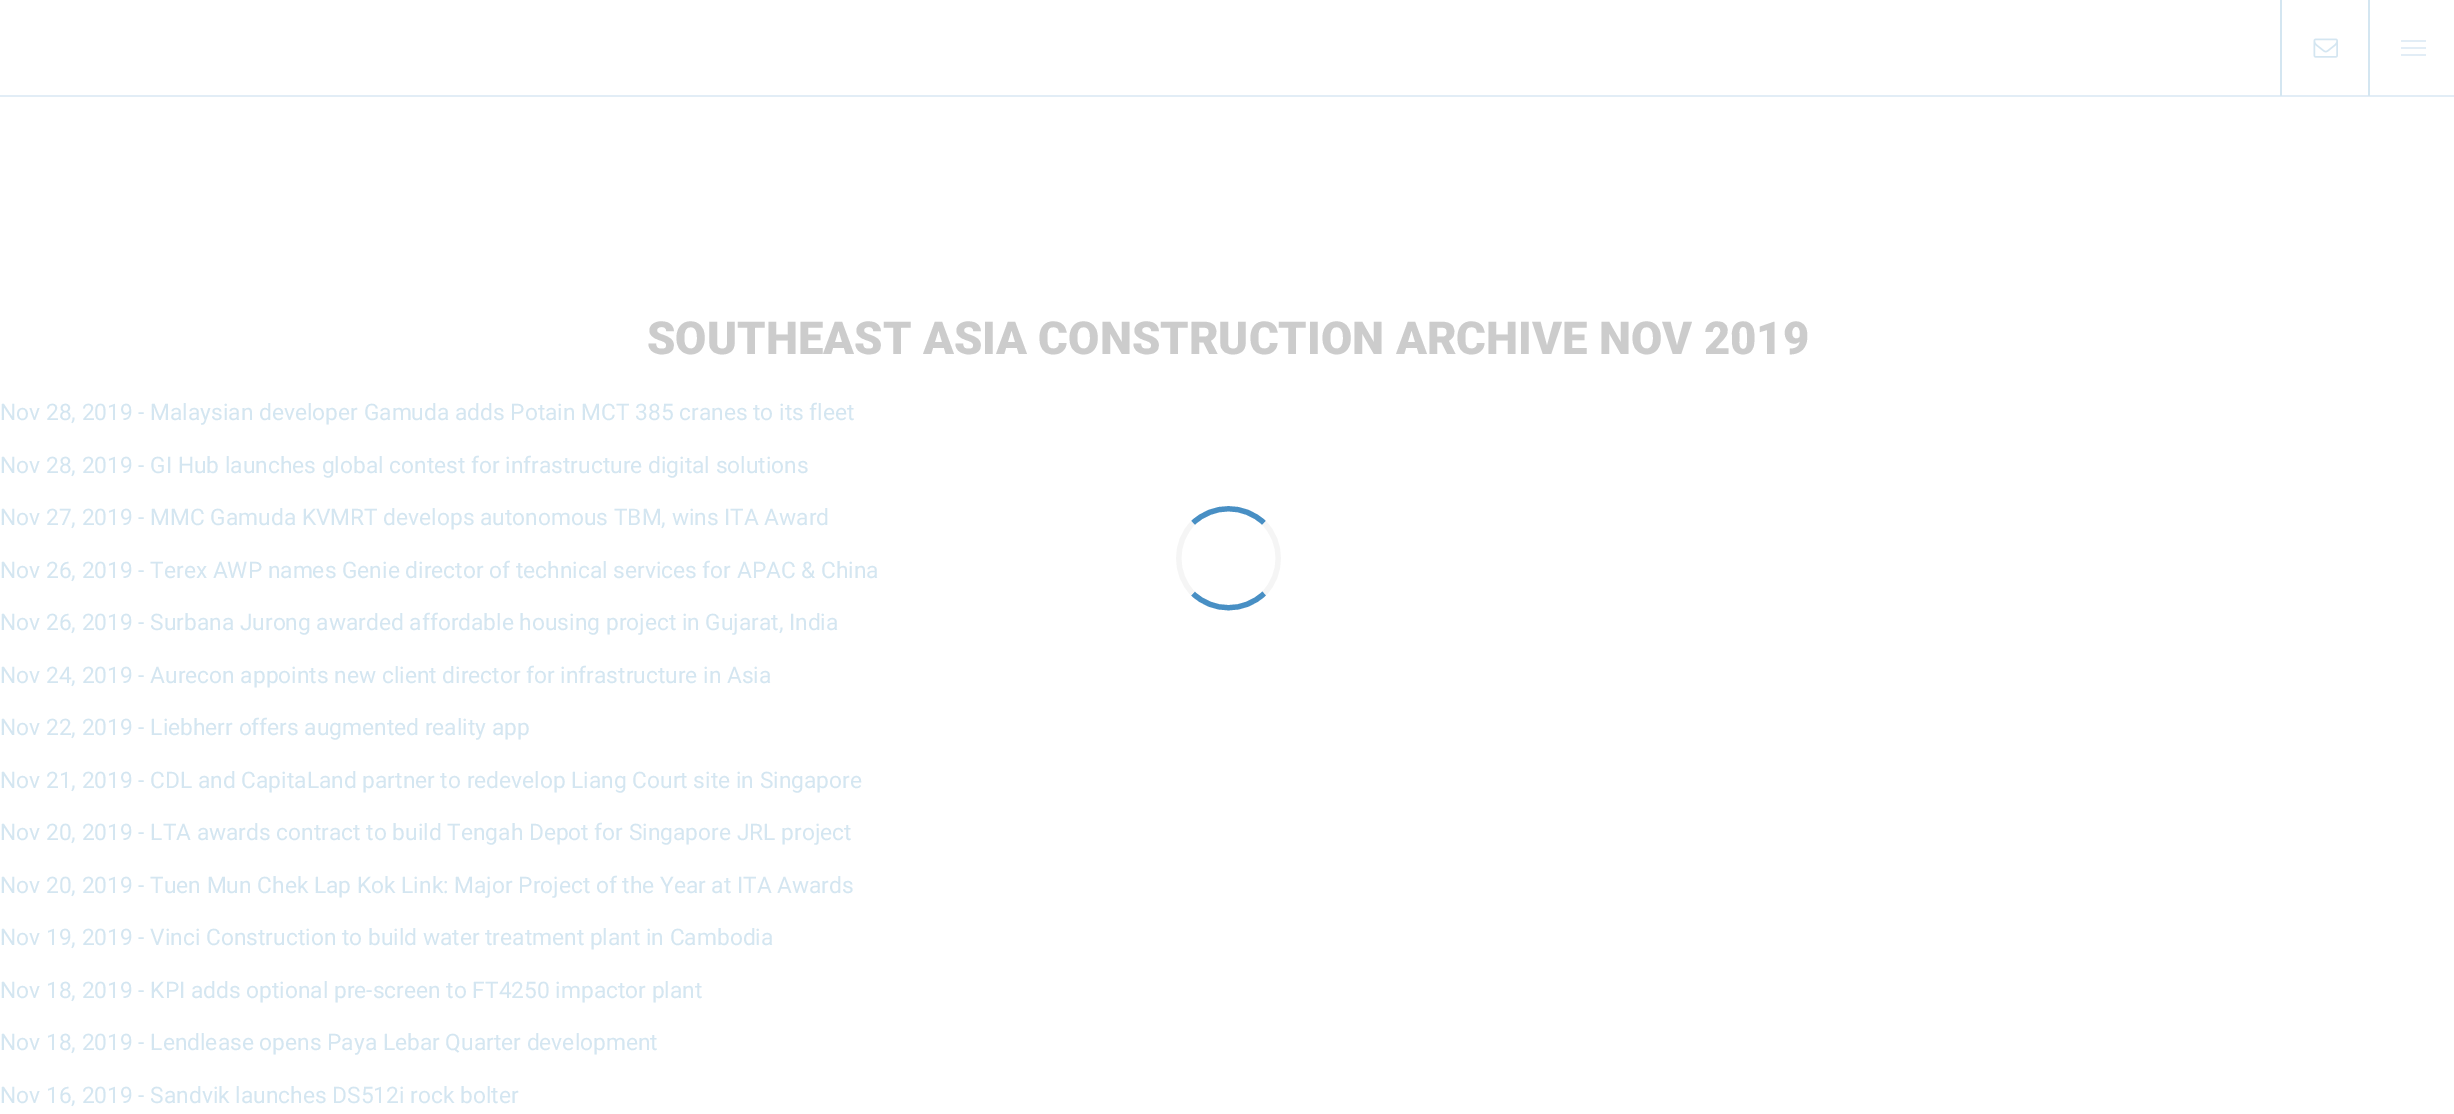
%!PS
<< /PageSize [2454 1114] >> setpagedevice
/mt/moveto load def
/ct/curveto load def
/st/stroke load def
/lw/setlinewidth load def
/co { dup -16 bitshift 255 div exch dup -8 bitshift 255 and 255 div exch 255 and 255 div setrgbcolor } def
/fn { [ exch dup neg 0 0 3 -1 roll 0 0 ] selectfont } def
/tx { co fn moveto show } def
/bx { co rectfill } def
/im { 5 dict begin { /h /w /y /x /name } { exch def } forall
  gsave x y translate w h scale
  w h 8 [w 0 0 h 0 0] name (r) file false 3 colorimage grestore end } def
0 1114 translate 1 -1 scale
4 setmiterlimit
0 0 2454 1114 16#FFFFFF bx
0 95 2454 2 16#E2EDF6 bx
2280 0 2 96 16#D4E6F1 bx
(media/1.raw) 2313 38 25 20 im
2368 0 2 96 16#D4E6F1 bx
2401 40 25 2 16#E2EDF6 bx
2401 47 25 2 16#E2EDF6 bx
2401 54 25 2 16#E2EDF6 bx
16#488FC4 co
5.2 lw
1193 523 mt 1212.5 504 1244.5 504 1264 523 ct st
16#F5F5F5 co
1264 523 mt 1283 542 1283 574.5 1264 593.5 ct st
16#488FC4 co
1264 593.5 mt 1244.5 612.5 1212.5 612.5 1193 593.5 ct st
16#F5F5F5 co
1193 593.5 mt 1174 574.5 1174 542 1193 523 ct st
(SOUTHEAST ASIA CONSTRUCTION ARCHIVE NOV 2019) 647 354 /Roboto-Black 45.5 16#CCCCCC tx
(Nov 28, 2019 - Malaysian developer Gamuda adds Potain MCT 385 cranes to its fleet) 0 420 /Roboto-Regular 22.75 16#D4E6F1 tx
(Nov 28, 2019 - GI Hub launches global contest for infrastructure digital solutions) 0 473 /Roboto-Regular 22.75 16#D4E6F1 tx
(Nov 27, 2019 - MMC Gamuda KVMRT develops autonomous TBM, wins ITA Award) 0 525 /Roboto-Regular 22.75 16#D4E6F1 tx
(Nov 26, 2019 - Terex AWP names Genie director of technical services for APAC & China) 0 578 /Roboto-Regular 22.75 16#D4E6F1 tx
(Nov 26, 2019 - Surbana Jurong awarded affordable housing project in Gujarat, India) 0 630 /Roboto-Regular 22.75 16#D4E6F1 tx
(Nov 24, 2019 - Aurecon appoints new client director for infrastructure in Asia) 0 683 /Roboto-Regular 22.75 16#D4E6F1 tx
(Nov 22, 2019 - Liebherr offers augmented reality app) 0 735 /Roboto-Regular 22.75 16#D4E6F1 tx
(Nov 21, 2019 - CDL and CapitaLand partner to redevelop Liang Court site in Singapore) 0 788 /Roboto-Regular 22.75 16#D4E6F1 tx
(Nov 20, 2019 - LTA awards contract to build Tengah Depot for Singapore JRL project) 0 840 /Roboto-Regular 22.75 16#D4E6F1 tx
(Nov 20, 2019 - Tuen Mun Chek Lap Kok Link: Major Project of the Year at ITA Awards) 0 893 /Roboto-Regular 22.75 16#D4E6F1 tx
(Nov 19, 2019 - Vinci Construction to build water treatment plant in Cambodia) 0 945 /Roboto-Regular 22.75 16#D4E6F1 tx
(Nov 18, 2019 - KPI adds optional pre-screen to FT4250 impactor plant) 0 998 /Roboto-Regular 22.75 16#D4E6F1 tx
(Nov 18, 2019 - Lendlease opens Paya Lebar Quarter development) 0 1050 /Roboto-Regular 22.75 16#D4E6F1 tx
(Nov 16, 2019 - Sandvik launches DS512i rock bolter) 0 1103 /Roboto-Regular 22.75 16#D4E6F1 tx
showpage
